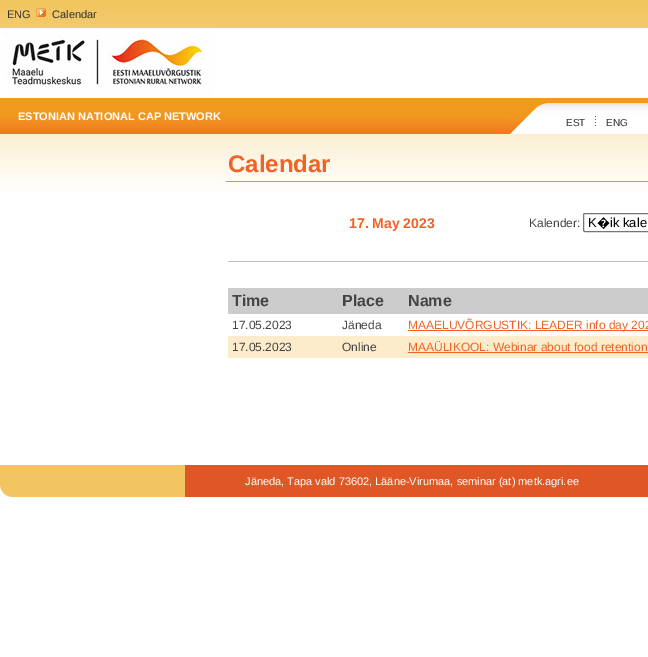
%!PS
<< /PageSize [648 657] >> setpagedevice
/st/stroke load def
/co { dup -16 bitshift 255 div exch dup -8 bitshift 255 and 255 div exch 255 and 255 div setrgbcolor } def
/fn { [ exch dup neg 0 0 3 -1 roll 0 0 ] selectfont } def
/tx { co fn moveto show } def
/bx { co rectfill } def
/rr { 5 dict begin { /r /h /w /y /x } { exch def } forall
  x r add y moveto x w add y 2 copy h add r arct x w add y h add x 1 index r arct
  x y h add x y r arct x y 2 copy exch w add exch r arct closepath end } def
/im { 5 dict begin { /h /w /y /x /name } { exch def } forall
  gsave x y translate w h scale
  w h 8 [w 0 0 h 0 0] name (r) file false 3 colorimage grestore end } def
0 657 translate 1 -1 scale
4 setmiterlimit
0 0 648 657 16#FFFFFF bx
(media/1.raw) 0 0 648 192 im
(media/2.raw) 36 8 10 9 im
(media/3.raw) 0 28 648 70 im
(media/4.raw) 0 98 648 36 im
(media/5.raw) 0 103 505 31 im
(media/6.raw) 505 103 44 31 im
(media/7.raw) 595 116 1 10 im
226 181 422 1 16#F19120 bx
16#767676 co
583.5 213.5 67 18 1.5 rr st
228 261 420 1 16#C0C0C0 bx
228 288 420 26 16#CCCCCC bx
408 330 240 1 16#F16225 bx
228 336 420 22 16#FCECCB bx
408 352 240 1 16#F16225 bx
185 465 463 32 16#E05726 bx
(media/8.raw) 0 465 185 32 im
(ENG) 7 18 /LiberationSans-Regular 11 16#333333 tx
(Calendar) 52 18 /LiberationSans-Regular 11 16#333333 tx
(ESTONIAN NATIONAL CAP NETWORK) 18 120 /LiberationSans-Bold 11 16#FFFFFF tx
(EST) 566 126 /LiberationSans-Regular 10 16#333333 tx
(ENG) 606 126 /LiberationSans-Regular 10 16#333333 tx
(Calendar) 228 172 /LiberationSans-Bold 24 16#F16225 tx
(17. May 2023) 349 228 /LiberationSans-Bold 14 16#F16225 tx
(Kalender:) 529 227 /LiberationSans-Regular 12 16#444444 tx
(K) 588 227 /LiberationSans-Regular 13 16#000000 tx
(�) 597 227 /NotoSans-Regular 13 16#000000 tx
(ik kale) 610 227 /LiberationSans-Regular 13 16#000000 tx
(Time) 232 306 /LiberationSans-Bold 16 16#444444 tx
(Place) 342 306 /LiberationSans-Bold 16 16#444444 tx
(Name) 408 306 /LiberationSans-Bold 16 16#444444 tx
(17.05.2023) 232 329 /LiberationSans-Regular 12 16#444444 tx
(Jäneda) 342 329 /LiberationSans-Regular 12 16#444444 tx
(MAAELUVÕRGUSTIK: LEADER info day 202) 408 329 /LiberationSans-Regular 12 16#F16225 tx
(17.05.2023) 232 351 /LiberationSans-Regular 12 16#444444 tx
(Online) 342 351 /LiberationSans-Regular 12 16#444444 tx
(MAAÜLIKOOL: Webinar about food retention) 408 351 /LiberationSans-Regular 12 16#F16225 tx
(Jäneda, Tapa vald 73602, Lääne-Virumaa, seminar \(at\) metk.agri.ee) 245 485 /LiberationSans-Regular 11 16#FFFFFF tx
showpage
